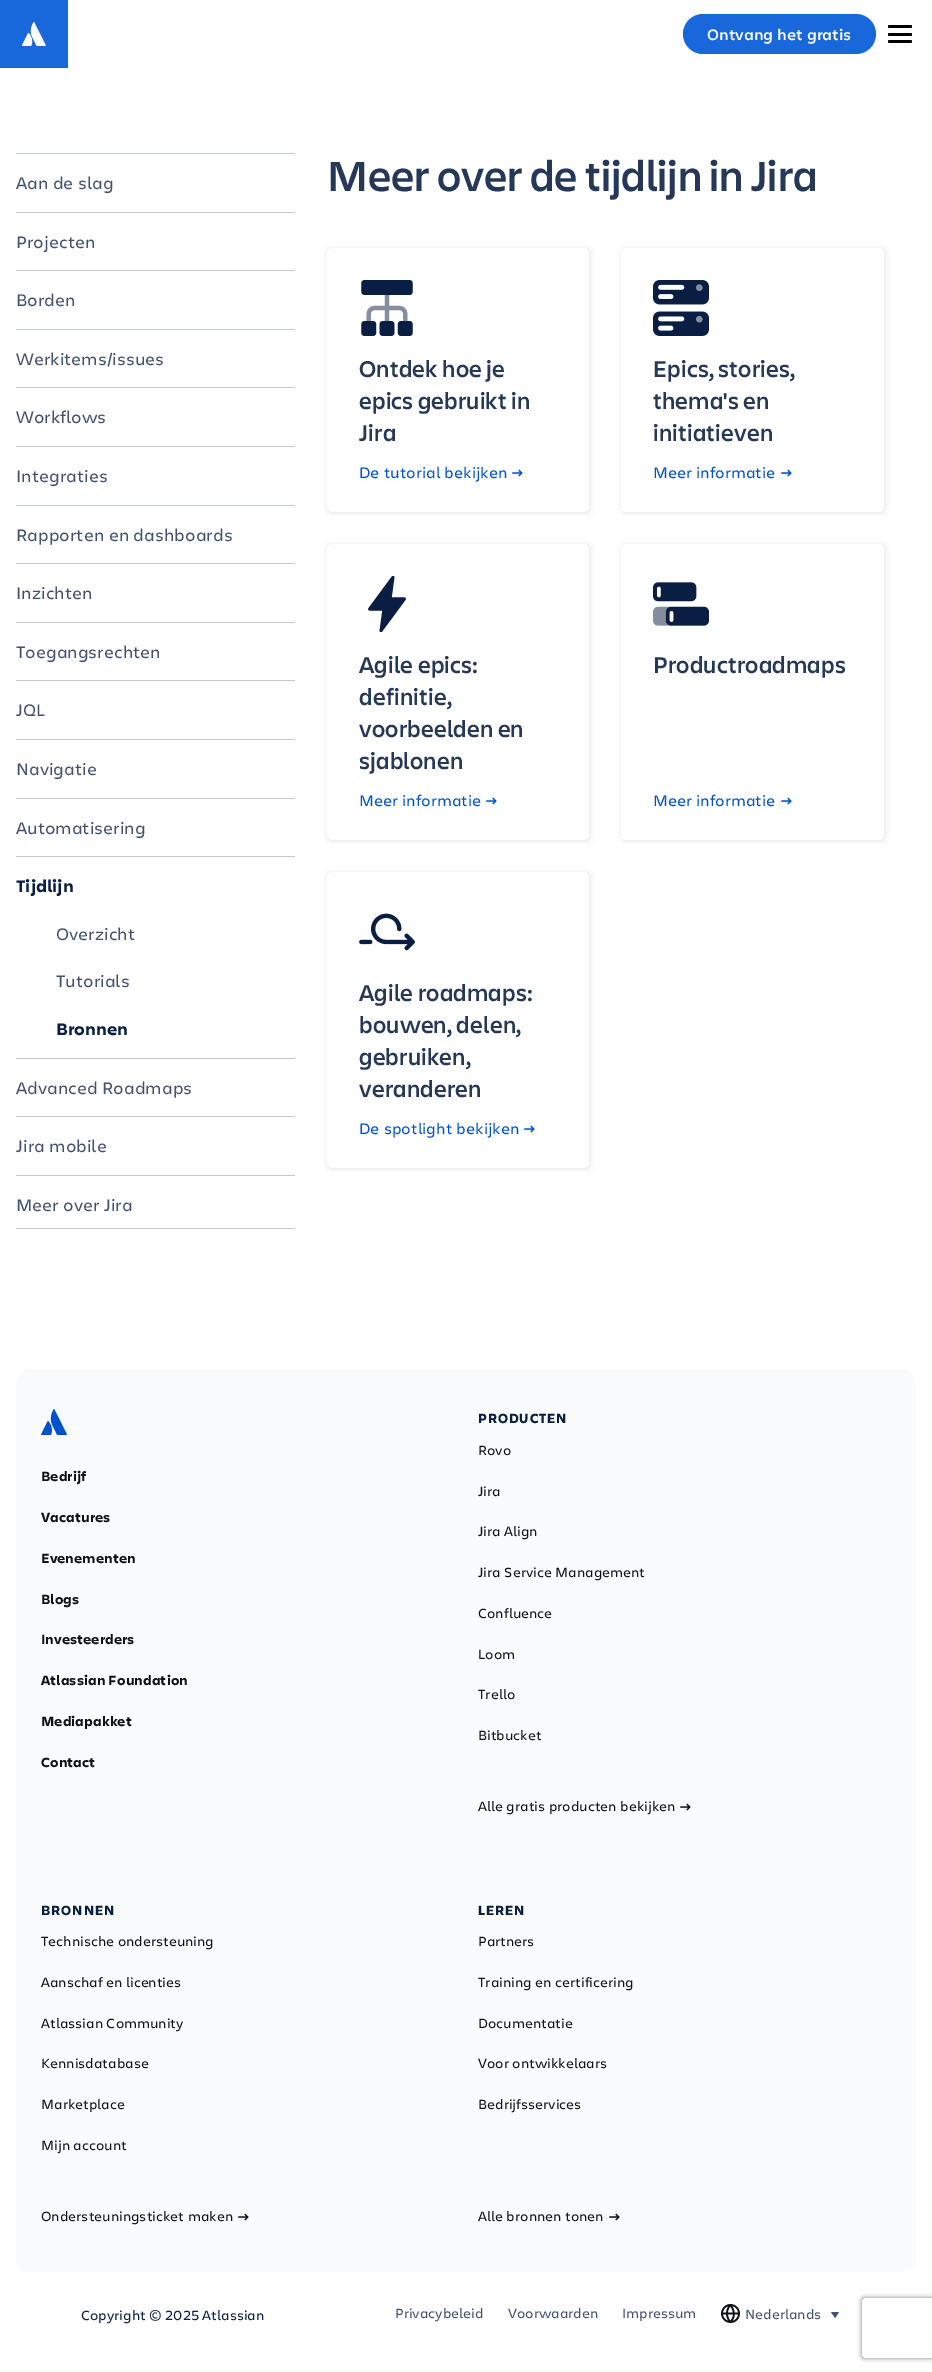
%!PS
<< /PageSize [932 2372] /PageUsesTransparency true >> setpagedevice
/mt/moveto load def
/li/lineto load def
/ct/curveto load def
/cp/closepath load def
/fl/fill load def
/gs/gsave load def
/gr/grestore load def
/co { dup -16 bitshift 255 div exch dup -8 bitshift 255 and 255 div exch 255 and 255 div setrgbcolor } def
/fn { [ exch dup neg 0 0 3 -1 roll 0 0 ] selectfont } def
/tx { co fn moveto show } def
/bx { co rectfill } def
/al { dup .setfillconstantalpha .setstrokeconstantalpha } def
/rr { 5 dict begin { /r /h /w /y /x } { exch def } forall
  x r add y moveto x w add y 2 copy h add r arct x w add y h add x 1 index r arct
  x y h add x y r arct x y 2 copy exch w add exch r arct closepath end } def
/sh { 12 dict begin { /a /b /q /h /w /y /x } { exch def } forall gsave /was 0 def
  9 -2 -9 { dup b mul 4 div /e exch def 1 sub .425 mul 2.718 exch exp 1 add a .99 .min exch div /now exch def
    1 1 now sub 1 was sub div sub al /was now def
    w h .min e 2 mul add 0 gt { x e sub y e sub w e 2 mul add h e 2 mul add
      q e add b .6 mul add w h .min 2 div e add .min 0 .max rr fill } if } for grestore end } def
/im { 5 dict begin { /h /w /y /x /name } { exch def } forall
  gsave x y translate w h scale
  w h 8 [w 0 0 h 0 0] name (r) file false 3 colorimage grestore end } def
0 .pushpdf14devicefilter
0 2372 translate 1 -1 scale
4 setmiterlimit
0 0 932 2372 16#FFFFFF bx
0 0 68 68 16#1868DB bx
(media/1.raw) 21 22 25 24 im
683 14 193 40 20 rr fl
16#000000 co
888 25 24 3 1.5 rr fl
888 33 24 3 1.5 rr fl
888 40 24 3 1.5 rr fl
16 153 279 1 16#C1C7D0 bx
16 212 279 1 16#C1C7D0 bx
16 270 279 1 16#C1C7D0 bx
16 329 279 1 16#C1C7D0 bx
16 387 279 1 16#C1C7D0 bx
16 446 279 1 16#C1C7D0 bx
16 505 279 1 16#C1C7D0 bx
16 563 279 1 16#C1C7D0 bx
16 622 279 1 16#C1C7D0 bx
16 680 279 1 16#C1C7D0 bx
16 739 279 1 16#C1C7D0 bx
16 798 279 1 16#C1C7D0 bx
16 856 279 1 16#C1C7D0 bx
16 1058 279 1 16#C1C7D0 bx
16 1116 279 1 16#C1C7D0 bx
16 1175 279 1 16#C1C7D0 bx
16 1228 279 1 16#C1C7D0 bx
gs
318 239 mt 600 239 li 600 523 li 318 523 li cp 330 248 mt 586 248 li 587.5 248 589 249.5 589 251 ct 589 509 li 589 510.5 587.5 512 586 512 ct 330 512 li 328.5 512 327 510.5 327 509 ct 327 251 li 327 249.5 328.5 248 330 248 ct cp eoclip newpath
16#000000 co
328 249 262 264 3 3 .1 sh
gr
(media/2.raw) 361 280 52 56 im
(media/3.raw) 512 469 11 8 im
gs
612 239 mt 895 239 li 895 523 li 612 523 li cp 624 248 mt 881 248 li 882.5 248 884 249.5 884 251 ct 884 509 li 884 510.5 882.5 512 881 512 ct 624 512 li 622.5 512 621 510.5 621 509 ct 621 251 li 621 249.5 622.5 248 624 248 ct cp eoclip newpath
16#000000 co
622 249 263 264 3 3 .1 sh
gr
(media/4.raw) 653 280 56 56 im
(media/3.raw) 781 469 11 8 im
gs
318 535 mt 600 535 li 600 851 li 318 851 li cp 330 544 mt 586 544 li 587.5 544 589 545.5 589 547 ct 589 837 li 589 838.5 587.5 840 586 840 ct 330 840 li 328.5 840 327 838.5 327 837 ct 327 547 li 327 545.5 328.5 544 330 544 ct cp eoclip newpath
16#000000 co
328 545 262 296 3 3 .1 sh
gr
(media/5.raw) 368 576 38 56 im
(media/3.raw) 486 797 11 8 im
gs
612 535 mt 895 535 li 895 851 li 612 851 li cp 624 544 mt 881 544 li 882.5 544 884 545.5 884 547 ct 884 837 li 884 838.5 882.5 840 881 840 ct 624 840 li 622.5 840 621 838.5 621 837 ct 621 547 li 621 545.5 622.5 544 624 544 ct cp eoclip newpath
16#000000 co
622 545 263 296 3 3 .1 sh
gr
(media/6.raw) 653 582 56 44 im
(media/3.raw) 781 797 11 8 im
gs
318 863 mt 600 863 li 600 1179 li 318 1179 li cp 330 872 mt 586 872 li 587.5 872 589 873.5 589 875 ct 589 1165 li 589 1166.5 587.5 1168 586 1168 ct 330 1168 li 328.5 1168 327 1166.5 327 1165 ct 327 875 li 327 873.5 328.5 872 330 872 ct cp eoclip newpath
16#000000 co
328 873 262 296 3 3 .1 sh
gr
(media/7.raw) 359 913 56 38 im
(media/3.raw) 524 1125 11 8 im
16#FAFBFC co
16 1369 900 903 15 rr fl
(media/8.raw) 41 1409 26 26 im
(media/9.raw) 680 1803 11 8 im
(media/9.raw) 238 2213 11 8 im
(media/9.raw) 609 2213 11 8 im
(media/10.raw) 721 2304 19 19 im
16#42526E co
831 2312 mt 839 2312 li 835 2318 li cp fl
gs
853 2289 mt 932 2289 li 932 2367 li 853 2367 li cp 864 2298 mt 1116 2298 li 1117 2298 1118 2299 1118 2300 ct 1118 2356 li 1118 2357 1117 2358 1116 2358 ct 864 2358 li 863 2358 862 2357 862 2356 ct 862 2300 li 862 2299 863 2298 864 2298 ct cp eoclip newpath
16#808080 co
862 2298 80 60 2 2.5 1 sh
gr
(Ontvang het gratis) 707 40 /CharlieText-SemiBold 16 16#FFFFFF tx
(Aan de slag) 16 189 /CharlieText-Regular 17.6 16#42526E tx
(Projecten) 16 248 /CharlieText-Regular 17.6 16#42526E tx
(Borden) 16 306 /CharlieText-Regular 17.6 16#42526E tx
(Werkitems/issues) 16 365 /CharlieText-Regular 17.6 16#42526E tx
(Workflows) 16 423 /CharlieText-Regular 17.6 16#42526E tx
(Integraties) 16 482 /CharlieText-Regular 17.6 16#42526E tx
(Rapporten en dashboards) 16 541 /CharlieText-Regular 17.6 16#42526E tx
(Inzichten) 16 599 /CharlieText-Regular 17.6 16#42526E tx
(Toegangsrechten) 16 658 /CharlieText-Regular 17.6 16#42526E tx
(JQL) 16 716 /CharlieText-Regular 17.6 16#42526E tx
(Navigatie) 16 775 /CharlieText-Regular 17.6 16#42526E tx
(Automatisering) 16 834 /CharlieText-Regular 17.6 16#42526E tx
(Tijdlijn) 16 892 /CharlieText-Bold 17.6 16#091E42 tx
(Overzicht) 56 940 /CharlieText-Regular 17.6 16#42526E tx
(Tutorials) 56 987 /CharlieText-Regular 17.6 16#42526E tx
(Bronnen) 56 1035 /CharlieText-Bold 17.6 16#091E42 tx
(Advanced Roadmaps) 16 1094 /CharlieText-Regular 17.6 16#42526E tx
(Jira mobile) 16 1152 /CharlieText-Regular 17.6 16#42526E tx
(Meer over Jira) 16 1211 /CharlieText-Regular 17.6 16#42526E tx
(Meer over de tijdlijn in Jira) 327 191 /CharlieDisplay-SemiBold 44 16#253858 tx
/CharlieDisplay-SemiBold 24 fn
359 377 mt .25 0 (Ontdek hoe je) ashow
359 409 mt .25 0 (epics gebruikt in) ashow
359 441 mt .25 0 (Jira) ashow
(De tutorial bekijken) 359 478 /CharlieText-Regular 16 16#0052CC tx
/CharlieDisplay-SemiBold 24 fn
16#253858 co
653 377 mt .25 0 (Epics, stories,) ashow
653 409 mt .25 0 (thema's en) ashow
653 441 mt .25 0 (initiatieven) ashow
(Meer informatie) 653 478 /CharlieText-Regular 16 16#0052CC tx
/CharlieDisplay-SemiBold 24 fn
16#253858 co
359 673 mt .25 0 (Agile epics:) ashow
359 705 mt .25 0 (definitie,) ashow
359 737 mt .25 0 (voorbeelden en) ashow
359 769 mt .25 0 (sjablonen) ashow
(Meer informatie) 359 806 /CharlieText-Regular 16 16#0052CC tx
/CharlieDisplay-SemiBold 24 fn
16#253858 co
653 673 mt .25 0 (Productroadmaps) ashow
(Meer informatie) 653 806 /CharlieText-Regular 16 16#0052CC tx
/CharlieDisplay-SemiBold 24 fn
16#253858 co
359 1001 mt .25 0 (Agile roadmaps:) ashow
359 1033 mt .25 0 (bouwen, delen,) ashow
359 1065 mt .25 0 (gebruiken,) ashow
359 1097 mt .25 0 (veranderen) ashow
(De spotlight bekijken) 359 1134 /CharlieText-Regular 16 16#0052CC tx
(Bedrijf) 41 1481 /CharlieText-Bold 14 16#101214 tx
(Vacatures) 41 1522 /CharlieText-Bold 14 16#101214 tx
(Evenementen) 41 1563 /CharlieText-Bold 14 16#101214 tx
(Blogs) 41 1604 /CharlieText-Bold 14 16#101214 tx
(Investeerders) 41 1644 /CharlieText-Bold 14 16#101214 tx
(Atlassian Foundation) 41 1685 /CharlieText-Bold 14 16#101214 tx
(Mediapakket) 41 1726 /CharlieText-Bold 14 16#101214 tx
(Contact) 41 1767 /CharlieText-Bold 14 16#101214 tx
/CharlieDisplay-Bold 14 fn
16#091E42 co
478 1423 mt 1 0 (PRODUCTEN) ashow
(Rovo) 478 1455 /CharlieText-Regular 14 16#101214 tx
(Jira) 478 1496 /CharlieText-Regular 14 16#101214 tx
(Jira Align) 478 1536 /CharlieText-Regular 14 16#101214 tx
(Jira Service Management) 478 1577 /CharlieText-Regular 14 16#101214 tx
(Confluence) 478 1618 /CharlieText-Regular 14 16#101214 tx
(Loom) 478 1659 /CharlieText-Regular 14 16#101214 tx
(Trello) 478 1699 /CharlieText-Regular 14 16#101214 tx
(Bitbucket) 478 1740 /CharlieText-Regular 14 16#101214 tx
(Alle gratis producten bekijken) 478 1811 /CharlieText-Regular 14 16#101214 tx
/CharlieDisplay-Bold 14 fn
16#091E42 co
41 1915 mt 1 0 (BRONNEN) ashow
(Technische ondersteuning) 41 1946 /CharlieText-Regular 14 16#101214 tx
(Aanschaf en licenties) 41 1987 /CharlieText-Regular 14 16#101214 tx
(Atlassian Community) 41 2028 /CharlieText-Regular 14 16#101214 tx
(Kennisdatabase) 41 2068 /CharlieText-Regular 14 16#101214 tx
(Marketplace) 41 2109 /CharlieText-Regular 14 16#101214 tx
(Mijn account) 41 2150 /CharlieText-Regular 14 16#101214 tx
(Ondersteuningsticket maken) 41 2221 /CharlieText-Regular 14 16#101214 tx
/CharlieDisplay-Bold 14 fn
16#091E42 co
478 1915 mt 1 0 (LEREN) ashow
(Partners) 478 1946 /CharlieText-Regular 14 16#101214 tx
(Training en certificering) 478 1987 /CharlieText-Regular 14 16#101214 tx
(Documentatie) 478 2028 /CharlieText-Regular 14 16#101214 tx
(Voor ontwikkelaars) 478 2068 /CharlieText-Regular 14 16#101214 tx
(Bedrijfsservices) 478 2109 /CharlieText-Regular 14 16#101214 tx
(Alle bronnen tonen) 478 2221 /CharlieText-Regular 14 16#101214 tx
(Copyright © 2025 Atlassian) 81 2320 /CharlieText-Regular 14 16#091E42 tx
(Privacybeleid) 395 2318 /CharlieText-Regular 14 16#42526E tx
(Voorwaarden) 508 2318 /CharlieText-Regular 14 16#42526E tx
(Impressum) 622 2318 /CharlieText-Regular 14 16#42526E tx
(Nederlands) 745 2319 /CharlieText-Regular 14 16#42526E tx
.poppdf14devicefilter showpage
